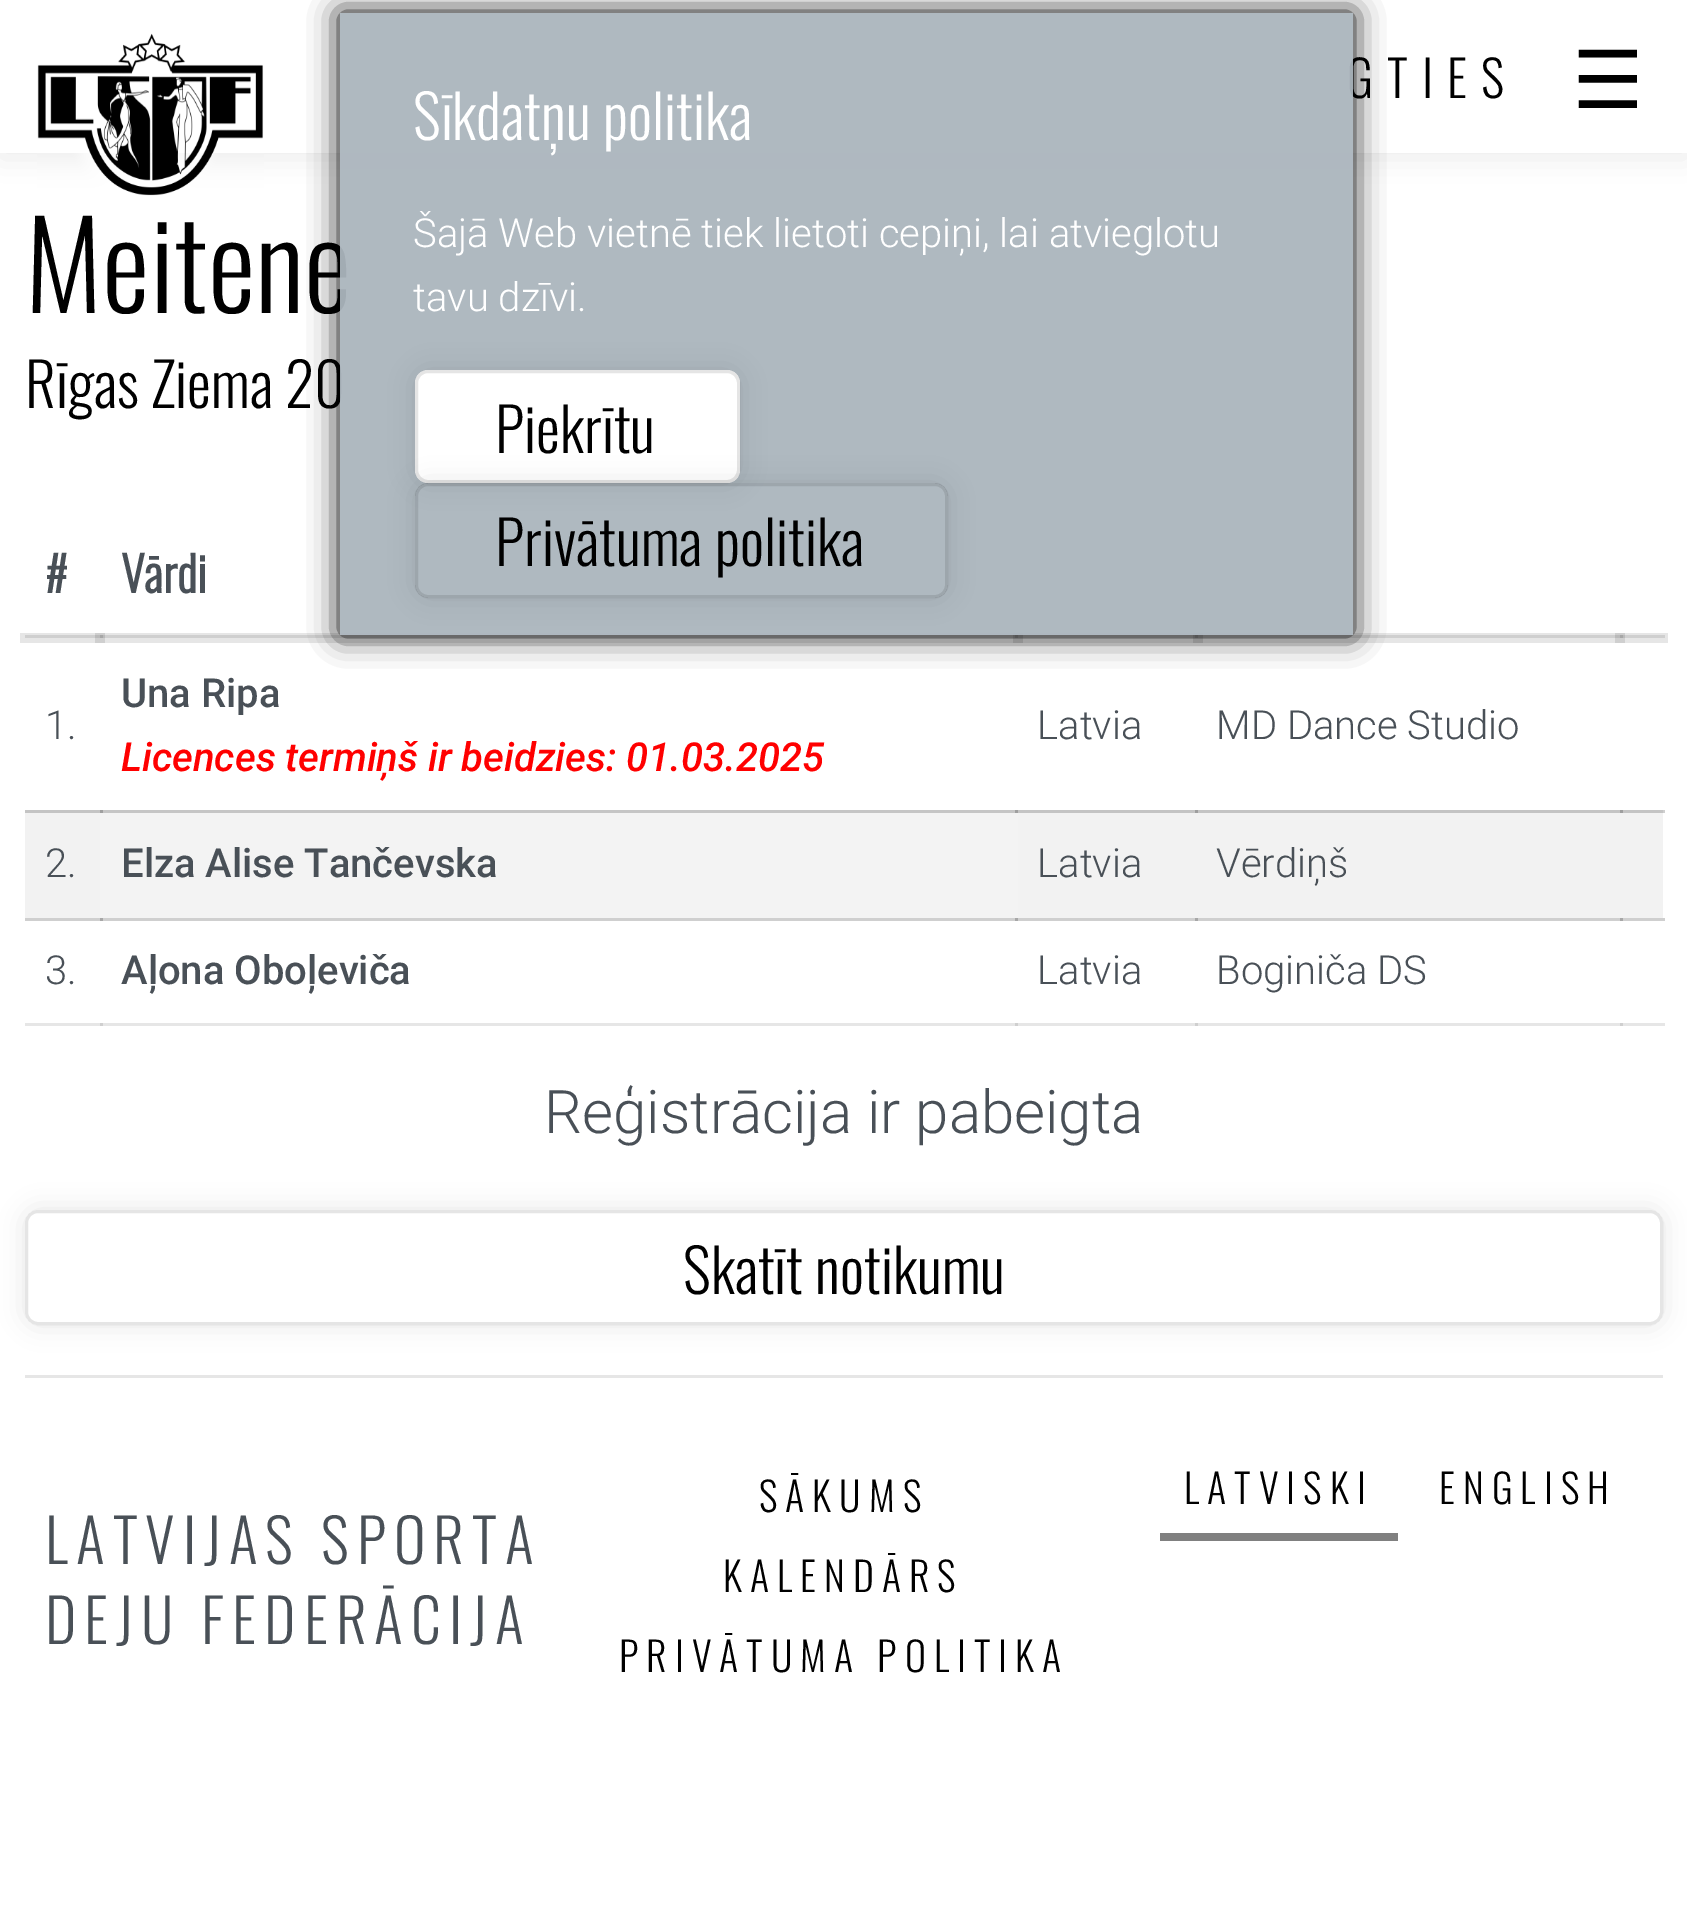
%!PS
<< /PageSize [1687 1905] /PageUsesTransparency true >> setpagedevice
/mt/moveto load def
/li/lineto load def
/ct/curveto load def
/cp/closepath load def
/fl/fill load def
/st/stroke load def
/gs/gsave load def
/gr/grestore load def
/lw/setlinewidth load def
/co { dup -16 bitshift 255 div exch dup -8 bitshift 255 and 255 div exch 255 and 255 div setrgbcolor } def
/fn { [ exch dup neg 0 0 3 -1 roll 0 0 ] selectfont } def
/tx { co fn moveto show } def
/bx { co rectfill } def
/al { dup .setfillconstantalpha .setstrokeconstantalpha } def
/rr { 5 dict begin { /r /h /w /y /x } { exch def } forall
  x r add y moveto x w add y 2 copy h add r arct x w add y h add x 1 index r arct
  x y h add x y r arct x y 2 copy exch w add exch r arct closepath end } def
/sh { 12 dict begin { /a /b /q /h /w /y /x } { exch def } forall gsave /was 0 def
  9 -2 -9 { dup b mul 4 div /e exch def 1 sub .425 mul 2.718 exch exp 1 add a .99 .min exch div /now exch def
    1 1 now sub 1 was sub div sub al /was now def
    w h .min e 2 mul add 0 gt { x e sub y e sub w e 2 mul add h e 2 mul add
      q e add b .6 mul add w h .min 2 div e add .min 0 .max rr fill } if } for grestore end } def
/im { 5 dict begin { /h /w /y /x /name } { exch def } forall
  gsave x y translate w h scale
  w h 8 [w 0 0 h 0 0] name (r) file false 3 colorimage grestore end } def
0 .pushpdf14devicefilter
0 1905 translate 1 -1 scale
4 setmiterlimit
0 0 1687 1905 16#FFFFFF bx
20 633 75 10 16#E6E6E6 bx
105 633 908 10 16#E6E6E6 bx
95 633 10 10 16#CFCFCF bx
1023 633 170 10 16#E6E6E6 bx
1013 633 10 10 16#CFCFCF bx
1203 633 412 10 16#E6E6E6 bx
1193 633 10 10 16#CFCFCF bx
1625 633 43 10 16#E6E6E6 bx
1615 633 10 10 16#CFCFCF bx
25 635 78 3 16#CFCFCF bx
95 635 8 3 16#BABABA bx
100 635 918 3 16#CFCFCF bx
100 635 5 3 16#BABABA bx
1013 635 5 3 16#BABABA bx
100 635 3 3 16#A7A7A7 bx
1015 635 183 3 16#CFCFCF bx
1015 635 8 3 16#BABABA bx
1193 635 5 3 16#BABABA bx
1015 635 3 3 16#A7A7A7 bx
1195 635 428 3 16#CFCFCF bx
1195 635 8 3 16#BABABA bx
1615 635 8 3 16#BABABA bx
1195 635 3 3 16#A7A7A7 bx
1663 810 2 3 16#CFCFCF bx
25 1023 1640 3 16#E6E6E6 bx
25 918 1640 3 16#CFCFCF bx
100 1023 3 3 16#CFCFCF bx
100 918 3 3 16#A7A7A7 bx
1015 1023 3 3 16#CFCFCF bx
1015 918 3 3 16#A7A7A7 bx
1195 1023 3 3 16#CFCFCF bx
1195 918 3 3 16#A7A7A7 bx
gs
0 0 mt 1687 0 li 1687 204 li 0 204 li cp 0 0 mt 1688 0 li 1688 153 li 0 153 li cp eoclip newpath
16#888888 co
0 5 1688 153 0 15 .18 sh
gr
0.95 al
0 152 1687 1 16#FFFFFF bx
1 al
(media/1.raw) 37 33 227 163 im
gs
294 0 mt 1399 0 li 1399 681 li 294 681 li cp 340 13 mt 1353 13 li 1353 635 li 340 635 li cp eoclip newpath
16#000000 co
340 13 1013 622 0 15 1 sh
gr
1620 635 45 3 16#CFCFCF bx
1620 635 5 3 16#BABABA bx
1620 635 3 3 16#A7A7A7 bx
1018 810 645 3 16#C4C4C4 bx
1620 810 3 3 16#9E9E9E bx
25 813 75 105 16#F2F2F2 bx
25 810 75 3 16#C4C4C4 bx
100 813 918 105 16#F3F3F3 bx
100 810 918 3 16#C5C5C5 bx
100 810 3 3 16#9F9F9F bx
1015 810 3 3 16#9F9F9F bx
1018 813 645 105 16#F2F2F2 bx
1195 810 3 3 16#9E9E9E bx
1620 918 3 3 16#A7A7A7 bx
1620 1023 3 3 16#CFCFCF bx
16#000000 co
25 1210 1638 115 13 12.5 .1 sh
16#FFFFFF co
25 1210 1638 115 13 rr fl
0.1 al
16#000000 co
3 lw
26.5 1211.5 1635 112 11.5 rr st
1 al
25 1375 1638 3 16#E6E6E6 bx
1160 1533 238 8 16#808080 bx
/Oswald-Light 50 fn
16#000000 co
1347 98 mt 14 0 (GTIES) ashow
/DejaVuSans-Regular 80 fn
1572 108 mt 14 0 (☰) ashow
(Meitene) 25 313 /Oswald-Light 120 16#000000 tx
(Rīgas Ziema 20) 25 408 /Oswald-Light 60 16#000000 tx
0.95 al
340 13 1013 622 16#ABB5BD bx
1 al
16#000000 co
415 370 325 113 13 12.5 .1 sh
16#FFFFFF co
415 370 325 113 13 rr fl
0.1 al
16#000000 co
416.5 371.5 322 110 11.5 rr st
gs
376 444 mt 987 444 li 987 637 li 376 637 li cp 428 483 mt 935 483 li 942 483 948 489 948 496 ct 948 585 li 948 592 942 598 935 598 ct 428 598 li 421 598 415 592 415 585 ct 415 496 li 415 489 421 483 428 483 ct cp eoclip newpath
1 al
415 483 533 115 13 12.5 .1 sh
gr
416.5 484.5 530 112 11.5 rr st
1 al
(Privātuma politika) 495 566 /Oswald-Light 60 16#000000 tx
(Piekrītu) 495 453 /Oswald-Light 60 16#000000 tx
(tavu dzīvi.) 413 311 /Roboto-Light 40 16#FFFFFF tx
(Šajā Web vietnē tiek lietoti cepiņi, lai atvieglotu) 413 247 /Roboto-Light 40 16#FFFFFF tx
(Sīkdatņu politika) 413 140 /Oswald-Light 60 16#FFFFFF tx
(#) 45 593 /Oswald-Bold 48 16#495057 tx
(Vārdi) 121 593 /Oswald-Bold 48 16#495057 tx
(1.) 45 739 /Roboto-Light 40 16#495057 tx
(Una Ripa) 121 707 /Roboto-Medium 40 16#495057 tx
(Licences termiņš ir beidzies: 01.03.2025) 121 771 /Roboto-MediumItalic 40 16#FF0000 tx
(Latvia) 1037 739 /Roboto-Light 40 16#495057 tx
(MD Dance Studio) 1216 739 /Roboto-Light 40 16#495057 tx
(2.) 45 877 /Roboto-Light 40 16#495057 tx
(Elza Alise Tančevska) 121 877 /Roboto-Medium 40 16#495057 tx
(Latvia) 1037 877 /Roboto-Light 40 16#495057 tx
(Vērdiņš) 1216 877 /Roboto-Light 40 16#495057 tx
(3.) 45 984 /Roboto-Light 40 16#495057 tx
(Aļona Oboļeviča) 121 984 /Roboto-Medium 40 16#495057 tx
(Latvia) 1037 984 /Roboto-Light 40 16#495057 tx
(Boginiča DS) 1216 984 /Roboto-Light 40 16#495057 tx
(Reģistrācija ir pabeigta) 544 1133 /Roboto-Light 60 16#495057 tx
(Skatīt notikumu) 683 1294 /Oswald-Light 60 16#000000 tx
16#495057 co
45 1564 mt 8 0 (LATVIJAS SPORTA) ashow
45 1644 mt 8 0 (DEJU FEDERĀCIJA) ashow
/Oswald-Light 40 fn
16#000000 co
759 1512 mt 8 0 (SĀKUMS) ashow
723 1592 mt 8 0 (KALENDĀRS) ashow
619 1672 mt 8 0 (PRIVĀTUMA POLITIKA) ashow
1184 1504 mt 8 0 (LATVISKI) ashow
1439 1504 mt 8 0 (ENGLISH) ashow
.poppdf14devicefilter showpage
